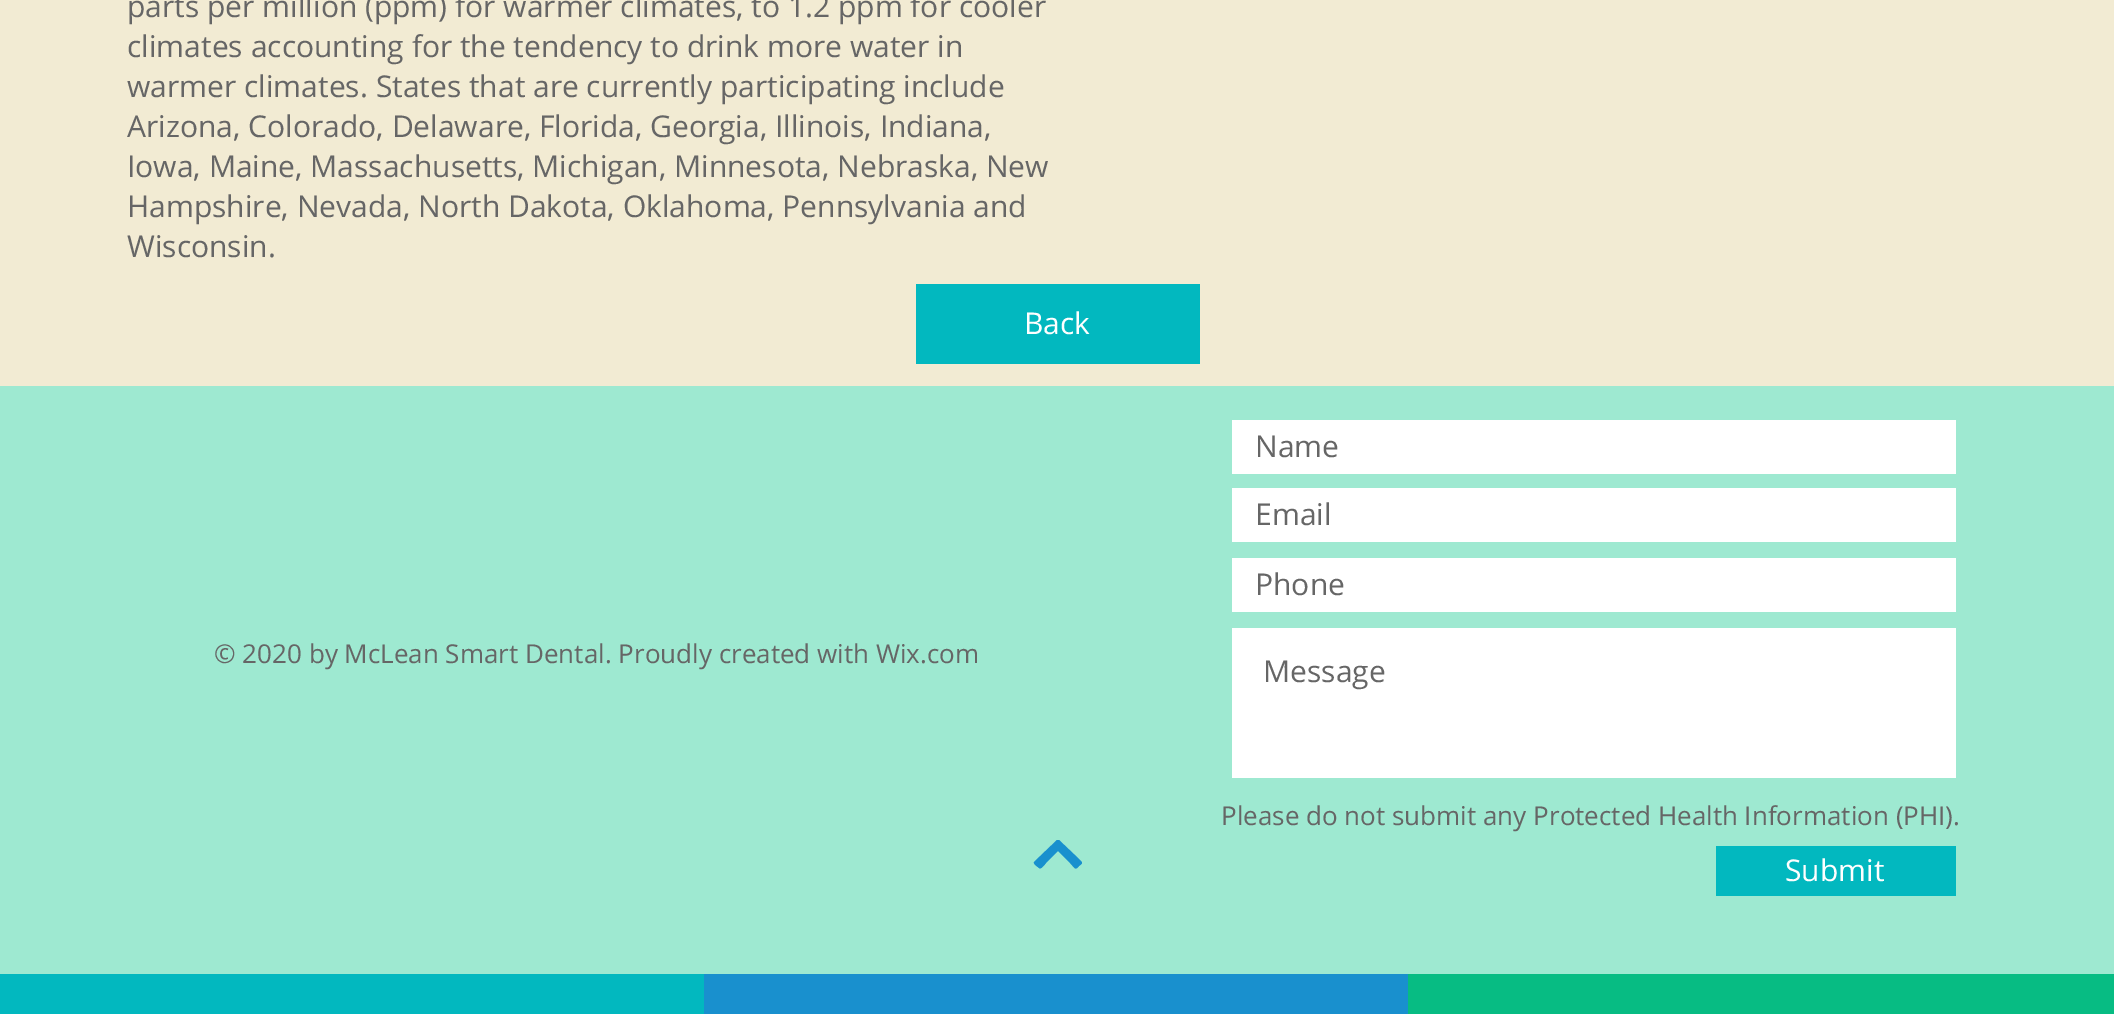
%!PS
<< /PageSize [2114 1014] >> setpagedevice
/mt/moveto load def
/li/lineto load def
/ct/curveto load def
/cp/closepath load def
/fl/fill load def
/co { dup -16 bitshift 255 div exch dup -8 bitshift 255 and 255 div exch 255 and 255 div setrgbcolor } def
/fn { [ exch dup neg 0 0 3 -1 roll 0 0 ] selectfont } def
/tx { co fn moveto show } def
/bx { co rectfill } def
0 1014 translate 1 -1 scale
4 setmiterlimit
0 0 2114 1014 16#F2EBD3 bx
916 284 284 80 16#02B8BF bx
0 386 2114 588 16#9EE9D1 bx
1232 420 724 54 16#FFFFFF bx
1232 488 724 54 16#FFFFFF bx
1232 558 724 54 16#FFFFFF bx
1232 628 724 150 16#FFFFFF bx
1716 846 240 50 16#02B8BF bx
16#1990CE co
1057 840 mt 1034 862 li 1033 864 1038 867 1039 868 ct 1041 870 1045 864 1046 863 ct 1058 851 li 1070 863 li 1075 868 1075 871 1079 866 ct 1083 863 1083 863 1079 859 ct 1059 840 li cp fl
0 974 704 40 16#02B8BF bx
704 974 704 40 16#1990CE bx
1408 974 706 40 16#07BC83 bx
(parts per million \(ppm\) for warmer climates, to 1.2 ppm for cooler) 127 17 /OpenSans-Regular 30 16#666666 tx
(climates accounting for the tendency to drink more water in) 127 57 /OpenSans-Regular 30 16#666666 tx
(warmer climates. States that are currently participating include) 127 97 /OpenSans-Regular 30 16#666666 tx
(Arizona, Colorado, Delaware, Florida, Georgia, Illinois, Indiana,) 127 137 /OpenSans-Regular 30 16#666666 tx
(Iowa, Maine, Massachusetts, Michigan, Minnesota, Nebraska, New) 127 177 /OpenSans-Regular 30 16#666666 tx
(Hampshire, Nevada, North Dakota, Oklahoma, Pennsylvania and) 127 217 /OpenSans-Regular 30 16#666666 tx
(Wisconsin.) 127 257 /OpenSans-Regular 30 16#666666 tx
(Back) 1024 334 /OpenSans-Regular 30 16#FFFFFF tx
(© 2020 by McLean Smart Dental. Proudly created with Wix.com) 214 663 /OpenSans-Regular 26 16#666666 tx
(Name) 1255 457 /OpenSans-Regular 30 16#666666 tx
(Email) 1255 525 /OpenSans-Regular 30 16#666666 tx
(Phone) 1255 595 /OpenSans-Regular 30 16#666666 tx
(Message) 1263 682 /OpenSans-Regular 30 16#666666 tx
(Please do not submit any Protected Health Information \(PHI\).) 1221 825 /OpenSans-Regular 26 16#666666 tx
(Submit) 1785 881 /OpenSans-Regular 30 16#FFFFFF tx
showpage
